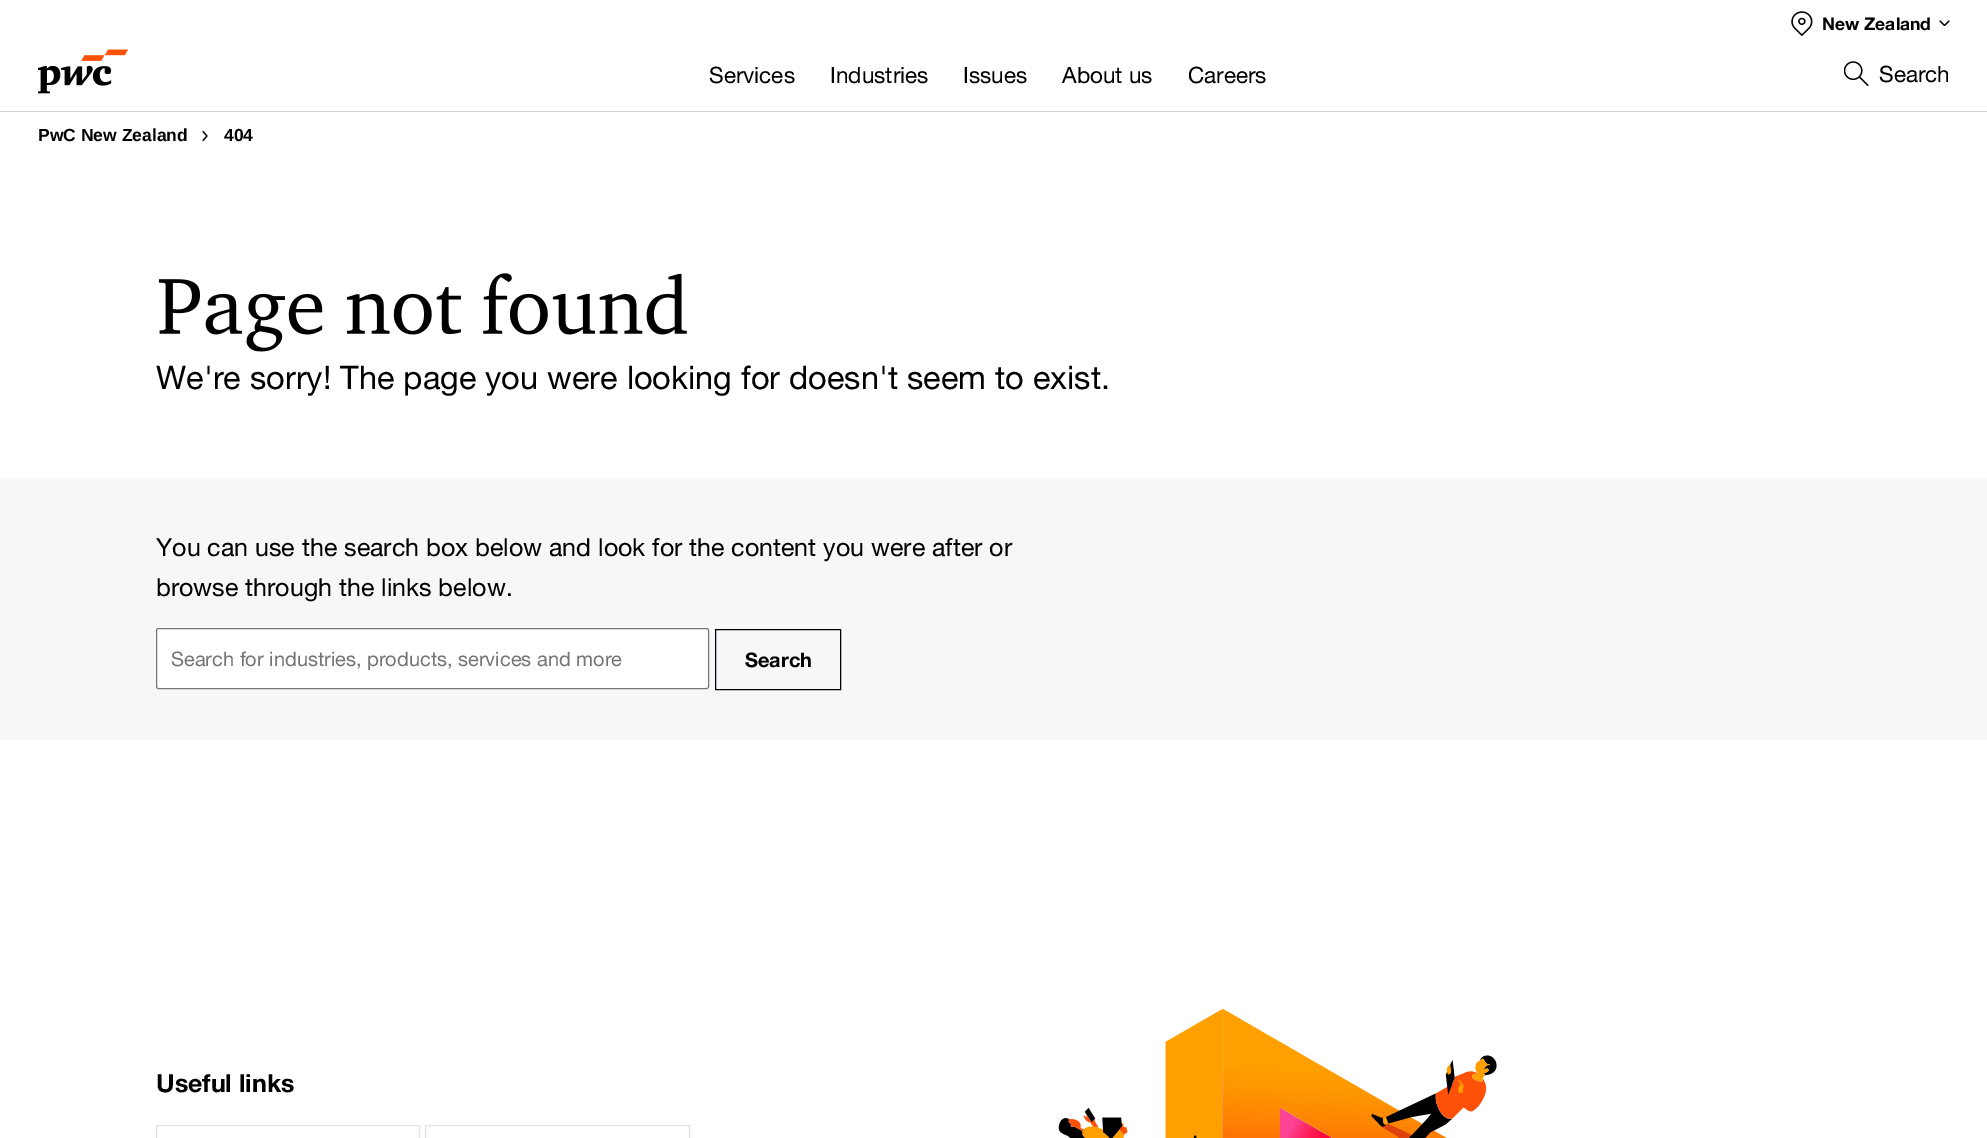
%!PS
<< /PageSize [1987 1138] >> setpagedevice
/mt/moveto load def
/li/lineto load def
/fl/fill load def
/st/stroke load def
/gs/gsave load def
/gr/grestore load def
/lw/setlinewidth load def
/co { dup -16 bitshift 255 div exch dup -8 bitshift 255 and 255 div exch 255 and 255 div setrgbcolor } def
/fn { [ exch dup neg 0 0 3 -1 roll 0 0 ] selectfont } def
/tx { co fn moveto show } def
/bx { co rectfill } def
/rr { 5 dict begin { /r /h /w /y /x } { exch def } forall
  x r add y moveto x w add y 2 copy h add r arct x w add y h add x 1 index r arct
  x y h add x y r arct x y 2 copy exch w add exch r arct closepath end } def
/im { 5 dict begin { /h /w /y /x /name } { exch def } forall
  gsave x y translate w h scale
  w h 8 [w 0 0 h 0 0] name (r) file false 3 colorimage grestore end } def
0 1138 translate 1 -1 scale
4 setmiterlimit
0 0 1987 1138 16#FFFFFF bx
0 111 1987 1 16#CBD1D6 bx
(media/1.raw) 38 49 90 45 im
(media/2.raw) 1791 11 22 25 im
16#000000 co
1.2 lw
1 setlinecap
1 setlinejoin
1940 21 mt 1944.5 25.5 li 1949 21 li st
(media/3.raw) 1844 61 25 25 im
203 140.5 mt 207 136 li 203 131.5 li st
(media/4.raw) 158 273 529 79 im
0 478 1987 262 16#F5F7F8 bx
16#FFFFFF co
156.5 628.5 552 60 2 rr gs fl gr
16#767676 co
1 lw
0 setlinecap
0 setlinejoin
st
16#000000 co
715.5 629.5 125 60 rectstroke
16#DFE3E6 co
156.5 1125.5 263 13 rectstroke
425.5 1125.5 264 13 rectstroke
(media/5.raw) 1058 1008 439 130 im
(New Zealand) 1822 30 /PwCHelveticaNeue-Bold 17.5 16#000000 tx
(Services) 709 83 /PwCHelveticaNeue-Regular 22.5 16#000000 tx
(Industries) 830 83 /PwCHelveticaNeue-Regular 22.5 16#000000 tx
(Issues) 963 83 /PwCHelveticaNeue-Regular 22.5 16#000000 tx
(About us) 1062 83 /PwCHelveticaNeue-Regular 22.5 16#000000 tx
(Careers) 1188 83 /PwCHelveticaNeue-Regular 22.5 16#000000 tx
(Search) 1879 82 /PwCHelveticaNeue-Regular 22.5 16#000000 tx
(PwC New Zealand) 38 141 /LiberationSans-Bold 17.5 16#000000 tx
gs
224 120 29 31 rectclip
(404) 224 141 /LiberationSans-Bold 17.5 16#000000 tx
gr
(We're sorry! The page you were looking for doesn't seem to exist.) 156 389 /PwCHelveticaNeue-Regular 32.5 16#000000 tx
(You can use the search box below and look for the content you were after or) 156 556 /PwCHelveticaNeue-Regular 25 16#000000 tx
(browse through the links below.) 156 596 /PwCHelveticaNeue-Regular 25 16#000000 tx
(Search for industries, products, services and more) 171 666 /PwCHelveticaNeue-Regular 20 16#757575 tx
(Search) 745 667 /PwCHelveticaNeue-Bold 20 16#000000 tx
(Useful links) 156 1092 /PwCHelveticaNeue-Bold 25 16#000000 tx
showpage
